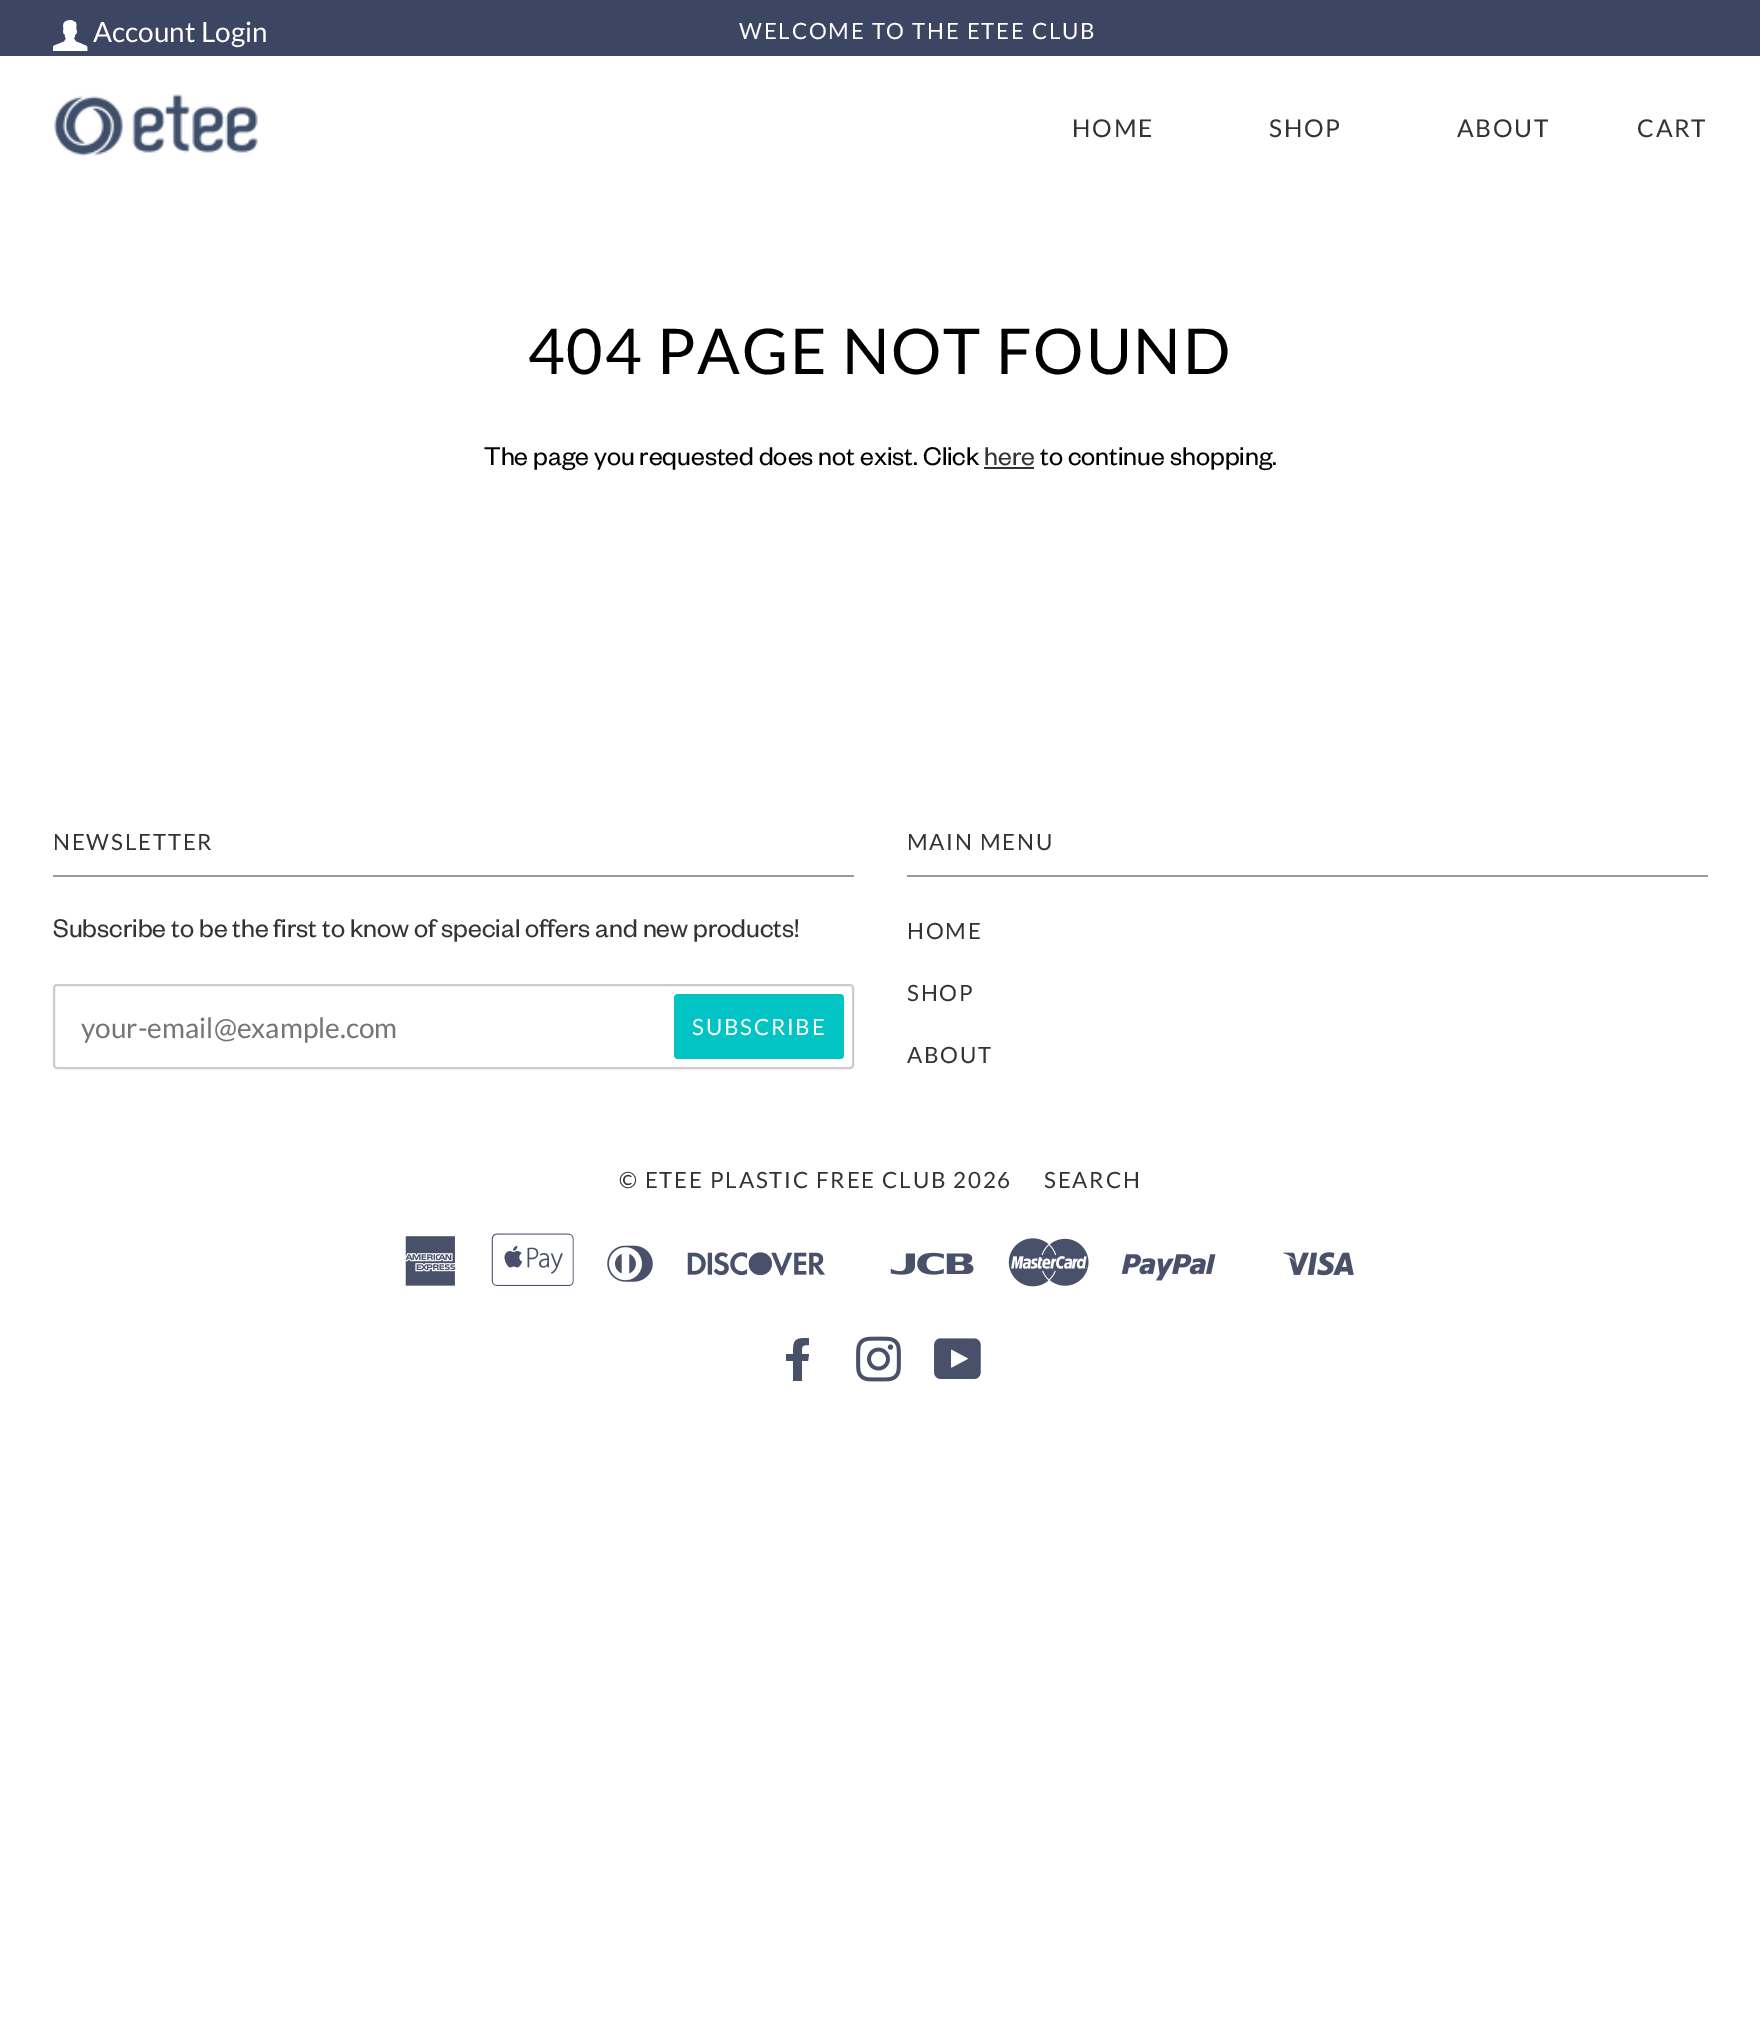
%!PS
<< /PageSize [1760 2035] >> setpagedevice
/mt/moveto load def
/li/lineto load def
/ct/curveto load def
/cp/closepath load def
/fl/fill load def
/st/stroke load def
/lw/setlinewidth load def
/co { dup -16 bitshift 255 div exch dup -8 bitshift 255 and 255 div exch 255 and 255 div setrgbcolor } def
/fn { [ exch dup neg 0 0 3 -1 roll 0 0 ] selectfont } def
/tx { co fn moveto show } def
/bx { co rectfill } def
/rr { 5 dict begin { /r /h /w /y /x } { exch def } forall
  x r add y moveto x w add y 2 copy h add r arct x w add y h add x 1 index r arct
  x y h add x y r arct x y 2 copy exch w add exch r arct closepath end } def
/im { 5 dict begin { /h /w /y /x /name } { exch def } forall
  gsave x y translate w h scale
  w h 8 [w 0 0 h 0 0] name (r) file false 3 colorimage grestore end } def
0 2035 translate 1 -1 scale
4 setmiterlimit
0 0 1760 2035 16#FFFFFF bx
0 0 1760 56 16#3C4562 bx
(media/1.raw) 53 19 35 32 im
(media/2.raw) 54 94 204 62 im
984 467 50 2 16#333333 bx
53 875 801 2 16#999999 bx
16#CCCCCC co
2 lw
54 985 799 83 3 rr st
16#03C4C4 co
674 994 170 65 4 rr fl
907 875 801 2 16#999999 bx
(media/3.raw) 405 1236 51 50 im
(media/4.raw) 491 1233 83 53 im
(media/5.raw) 607 1245 46 37 im
(media/6.raw) 687 1252 138 24 im
(media/7.raw) 890 1252 84 23 im
(media/8.raw) 1008 1238 81 49 im
(media/9.raw) 1121 1254 95 27 im
(media/10.raw) 1282 1252 72 24 im
16#48506A co
802 1381 mt 802 1361 li 808 1361 li 809 1354 li 802 1354 li 802 1346 801 1345 809 1345 ct 809 1338 li 795 1338 793 1339 793 1354 ct 786 1354 li 786 1361 li 793 1361 li 793 1381 li cp fl
(media/11.raw) 856 1336 45 46 im
(media/12.raw) 934 1338 47 41 im
(Account Login) 93 42 /Lato-Regular 28 16#FFFFFF tx
/Lato-Regular 22.4 fn
739 39 mt 1.75 0 (WELCOME TO THE ETEE CLUB) ashow
/Lato-Regular 24.5 fn
16#333333 co
1072 137 mt 1.75 0 (HOME) ashow
1269 137 mt 1.75 0 (SHOP) ashow
1457 137 mt 1.75 0 (ABOUT) ashow
1637 137 mt 1.75 0 (CART) ashow
/Lato-Regular 63 fn
16#000000 co
528 374 mt 1.75 0 (404 PAGE NOT FOUND) ashow
(The page you requested does not exist. Click) 484 465 /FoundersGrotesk-Regular 28 16#000000 tx
(here) 984 465 /FoundersGrotesk-Regular 28 16#333333 tx
(to continue shopping.) 1040 465 /FoundersGrotesk-Regular 28 16#000000 tx
/Lato-Regular 22.4 fn
16#333333 co
53 850 mt 1.75 0 (NEWSLETTER) ashow
(Subscribe to be the first to know of special offers and new products!) 53 937 /FoundersGrotesk-Regular 28 16#333333 tx
(your-email@example.com) 81 1038 /Lato-Regular 28 16#757575 tx
/Lato-Regular 22.4 fn
16#FFFFFF co
692 1035 mt 1.75 0 (SUBSCRIBE) ashow
16#333333 co
907 850 mt 1.75 0 (MAIN MENU) ashow
907 939 mt 1.75 0 (HOME) ashow
907 1001 mt 1.75 0 (SHOP) ashow
907 1063 mt 1.75 0 (ABOUT) ashow
619 1188 mt 1.75 0 (© ETEE PLASTIC FREE CLUB 2026) ashow
1044 1188 mt 1.75 0 (SEARCH) ashow
showpage
